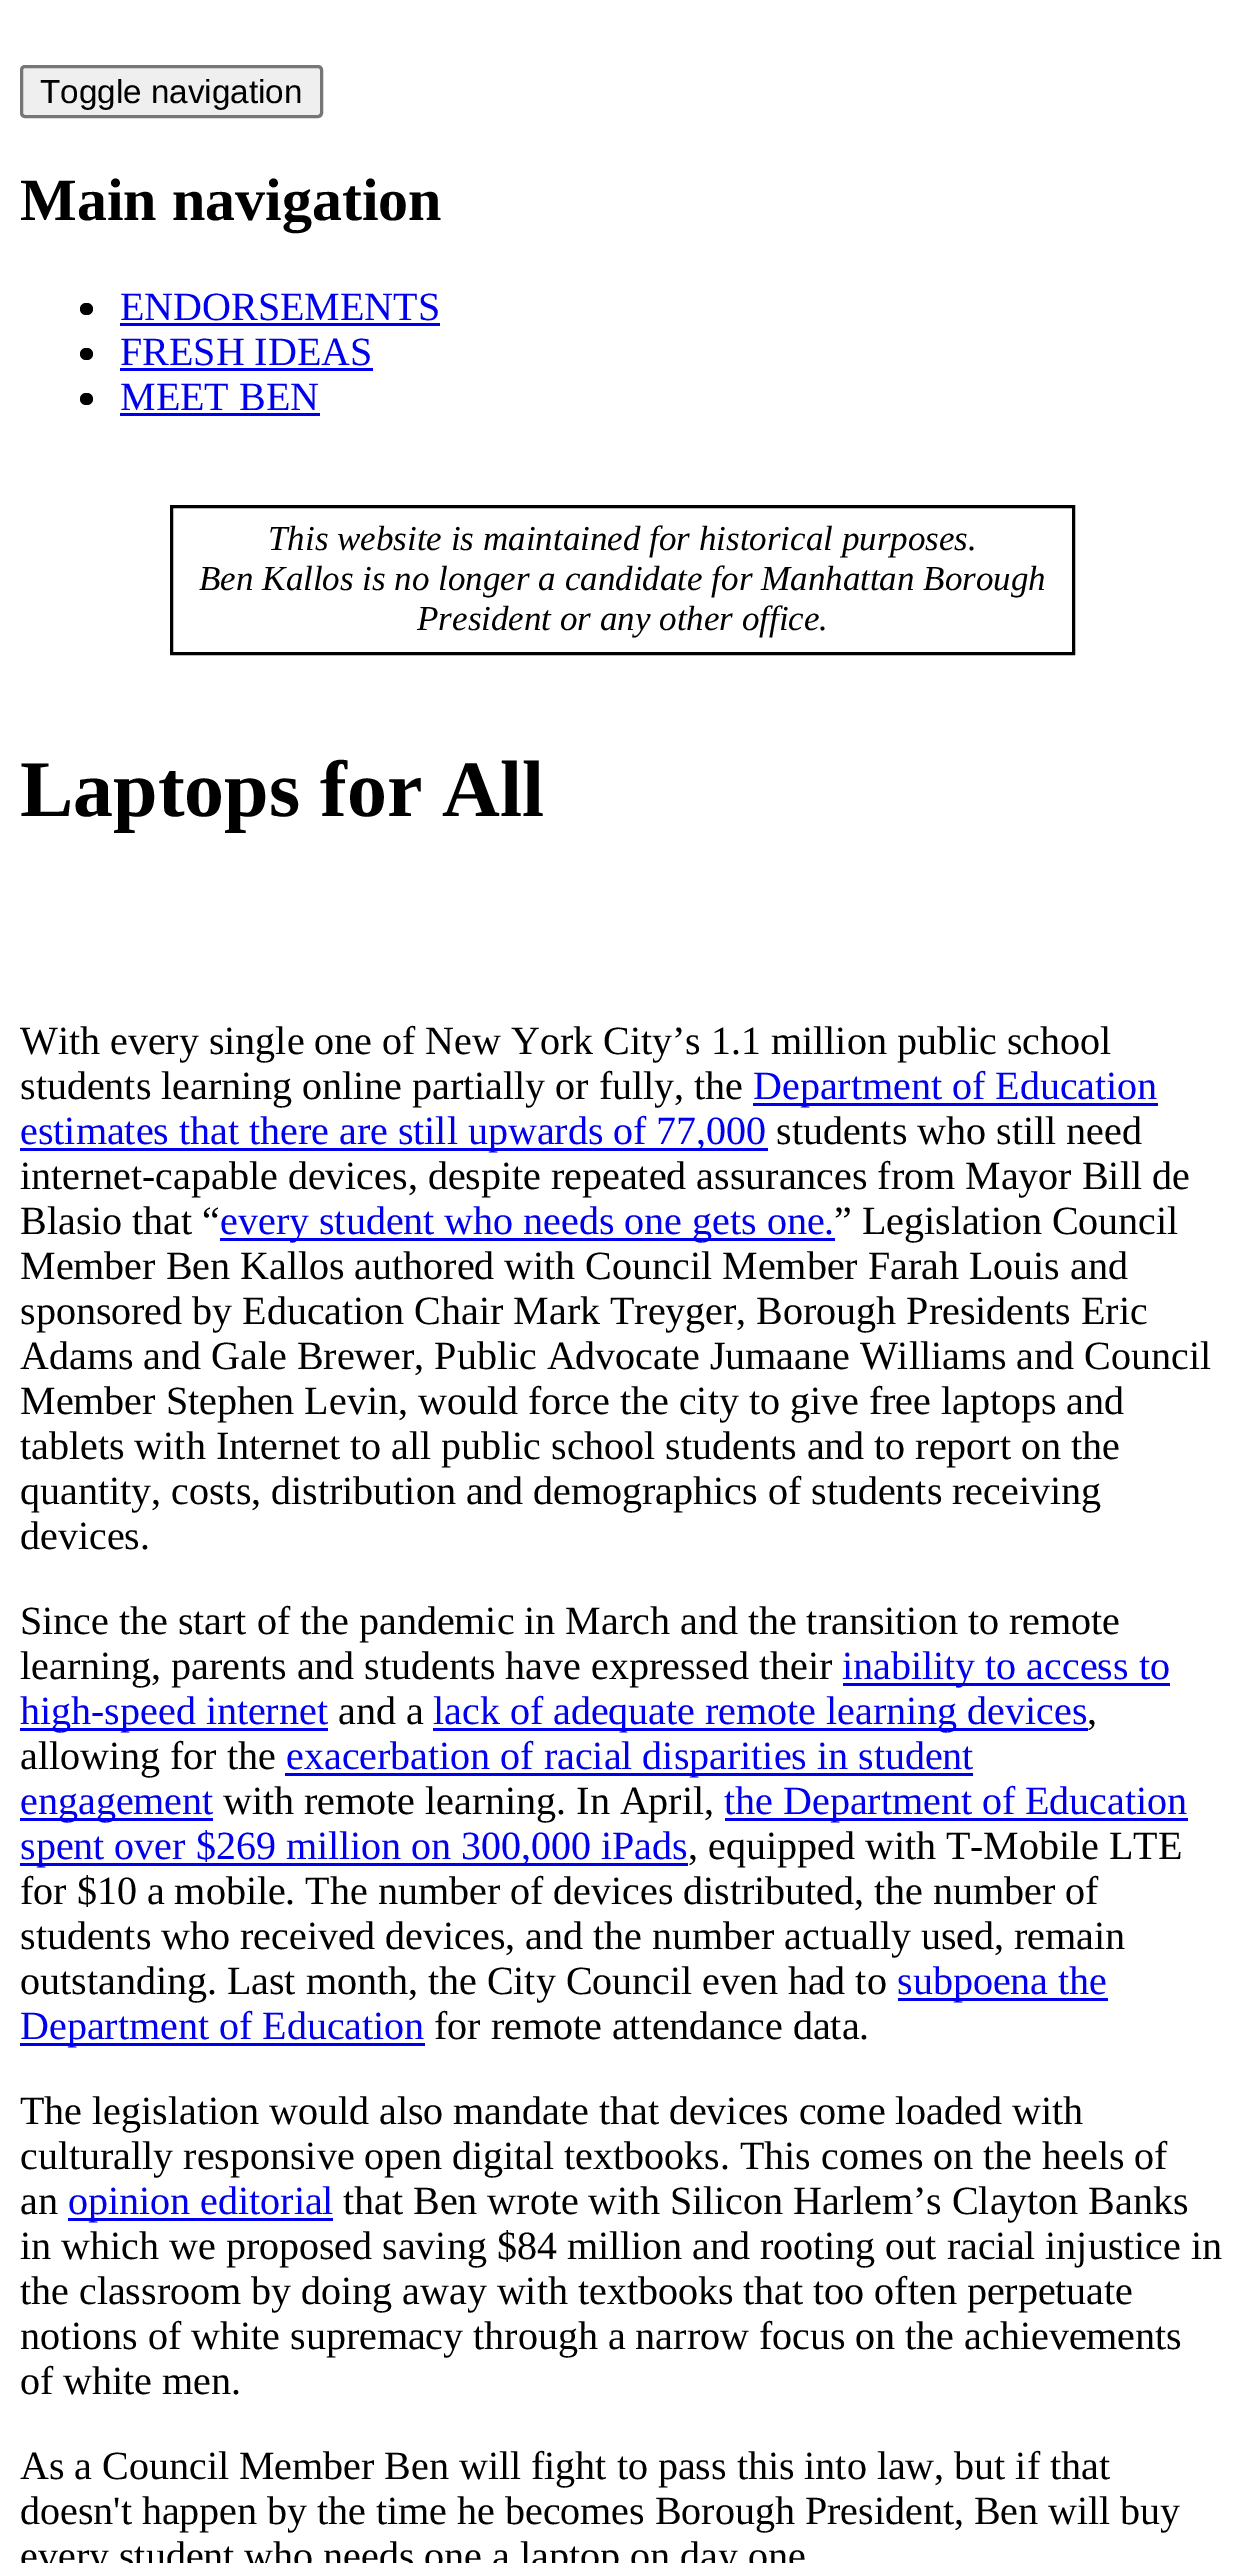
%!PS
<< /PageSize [1243 2563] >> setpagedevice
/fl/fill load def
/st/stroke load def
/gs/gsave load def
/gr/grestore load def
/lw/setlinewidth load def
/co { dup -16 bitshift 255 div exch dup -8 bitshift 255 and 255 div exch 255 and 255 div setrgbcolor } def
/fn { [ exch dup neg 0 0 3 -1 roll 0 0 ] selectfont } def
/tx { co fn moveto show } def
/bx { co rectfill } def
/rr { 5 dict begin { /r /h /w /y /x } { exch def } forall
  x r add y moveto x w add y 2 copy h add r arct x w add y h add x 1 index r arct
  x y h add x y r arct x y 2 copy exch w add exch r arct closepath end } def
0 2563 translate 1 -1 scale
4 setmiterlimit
0 0 1243 2563 16#FFFFFF bx
16#EFEFEF co
21.5 66.5 300 50 3.5 rr gs fl gr
16#767676 co
3 lw
st
16#000000 co
80 303 13 12 6 rr fl
120 323 320 3 16#0000EE bx
16#000000 co
80 348 13 12 6 rr fl
120 368 253 3 16#0000EE bx
16#000000 co
80 393 13 12 6 rr fl
120 413 200 3 16#0000EE bx
16#000000 co
171.5 506.5 902 147 rectstroke
753 1103 405 3 16#0000EE bx
20 1148 748 3 16#0000EE bx
220 1238 615 3 16#0000EE bx
843 1683 327 3 16#0000EE bx
20 1728 308 3 16#0000EE bx
433 1728 655 3 16#0000EE bx
285 1773 688 3 16#0000EE bx
20 1818 193 3 16#0000EE bx
725 1818 463 3 16#0000EE bx
20 1863 668 3 16#0000EE bx
898 1998 210 3 16#0000EE bx
20 2043 405 3 16#0000EE bx
68 2218 265 3 16#0000EE bx
(Toggle navigation) 40 103 /LiberationSans-Regular 33.25 16#000000 tx
(Main navigation) 20 220 /LiberationSerif-Bold 60 16#000000 tx
(ENDORSEMENTS) 120 320 /LiberationSerif-Regular 40 16#0000EE tx
(FRESH IDEAS) 120 365 /LiberationSerif-Regular 40 16#0000EE tx
(MEET BEN) 120 410 /LiberationSerif-Regular 40 16#0000EE tx
(This website is maintained for historical purposes.) 268 550 /LiberationSerif-Italic 35 16#000000 tx
(Ben Kallos is no longer a candidate for Manhattan Borough) 199 590 /LiberationSerif-Italic 35 16#000000 tx
(President or any other office.) 417 630 /LiberationSerif-Italic 35 16#000000 tx
(Laptops for All) 20 816 /LiberationSerif-Bold 80 16#000000 tx
(With every single one of New York City’s 1.1 million public school) 20 1054 /LiberationSerif-Regular 40 16#000000 tx
(students learning online partially or fully, the) 20 1099 /LiberationSerif-Regular 40 16#000000 tx
(Department of Education) 753 1099 /LiberationSerif-Regular 40 16#0000EE tx
(estimates that there are still upwards of 77,000) 20 1144 /LiberationSerif-Regular 40 16#0000EE tx
(students who still need) 776 1144 /LiberationSerif-Regular 40 16#000000 tx
(internet-capable devices, despite repeated assurances from Mayor Bill de) 20 1189 /LiberationSerif-Regular 40 16#000000 tx
(Blasio that “) 20 1234 /LiberationSerif-Regular 40 16#000000 tx
(every student who needs one gets one.) 220 1234 /LiberationSerif-Regular 40 16#0000EE tx
(” Legislation Council) 834 1234 /LiberationSerif-Regular 40 16#000000 tx
(Member Ben Kallos authored with Council Member Farah Louis and) 20 1279 /LiberationSerif-Regular 40 16#000000 tx
(sponsored by Education Chair Mark Treyger, Borough Presidents Eric) 20 1324 /LiberationSerif-Regular 40 16#000000 tx
(Adams and Gale Brewer, Public Advocate Jumaane Williams and Council) 20 1369 /LiberationSerif-Regular 40 16#000000 tx
(Member Stephen Levin, would force the city to give free laptops and) 20 1414 /LiberationSerif-Regular 40 16#000000 tx
(tablets with Internet to all public school students and to report on the) 20 1459 /LiberationSerif-Regular 40 16#000000 tx
(quantity, costs, distribution and demographics of students receiving) 20 1504 /LiberationSerif-Regular 40 16#000000 tx
(devices.) 20 1549 /LiberationSerif-Regular 40 16#000000 tx
(Since the start of the pandemic in March and the transition to remote) 20 1634 /LiberationSerif-Regular 40 16#000000 tx
(learning, parents and students have expressed their) 20 1679 /LiberationSerif-Regular 40 16#000000 tx
(inability to access to) 842 1679 /LiberationSerif-Regular 40 16#0000EE tx
(high-speed internet) 20 1724 /LiberationSerif-Regular 40 16#0000EE tx
(and a) 338 1724 /LiberationSerif-Regular 40 16#000000 tx
(lack of adequate remote learning devices) 433 1724 /LiberationSerif-Regular 40 16#0000EE tx
(,) 1087 1724 /LiberationSerif-Regular 40 16#000000 tx
(allowing for the) 20 1769 /LiberationSerif-Regular 40 16#000000 tx
(exacerbation of racial disparities in student) 286 1769 /LiberationSerif-Regular 40 16#0000EE tx
(engagement) 20 1814 /LiberationSerif-Regular 40 16#0000EE tx
(with remote learning. In April,) 223 1814 /LiberationSerif-Regular 40 16#000000 tx
(the Department of Education) 724 1814 /LiberationSerif-Regular 40 16#0000EE tx
(spent over $269 million on 300,000 iPads) 20 1859 /LiberationSerif-Regular 40 16#0000EE tx
(, equipped with T-Mobile LTE) 688 1859 /LiberationSerif-Regular 40 16#000000 tx
(for $10 a mobile. The number of devices distributed, the number of) 20 1904 /LiberationSerif-Regular 40 16#000000 tx
(students who received devices, and the number actually used, remain) 20 1949 /LiberationSerif-Regular 40 16#000000 tx
(outstanding. Last month, the City Council even had to) 20 1994 /LiberationSerif-Regular 40 16#000000 tx
(subpoena the) 897 1994 /LiberationSerif-Regular 40 16#0000EE tx
(Department of Education) 20 2039 /LiberationSerif-Regular 40 16#0000EE tx
(for remote attendance data.) 434 2039 /LiberationSerif-Regular 40 16#000000 tx
(The legislation would also mandate that devices come loaded with) 20 2124 /LiberationSerif-Regular 40 16#000000 tx
(culturally responsive open digital textbooks. This comes on the heels of) 20 2169 /LiberationSerif-Regular 40 16#000000 tx
(an) 20 2214 /LiberationSerif-Regular 40 16#000000 tx
(opinion editorial) 68 2214 /LiberationSerif-Regular 40 16#0000EE tx
(that Ben wrote with Silicon Harlem’s Clayton Banks) 343 2214 /LiberationSerif-Regular 40 16#000000 tx
(in which we proposed saving $84 million and rooting out racial injustice in) 20 2259 /LiberationSerif-Regular 40 16#000000 tx
(the classroom by doing away with textbooks that too often perpetuate) 20 2304 /LiberationSerif-Regular 40 16#000000 tx
(notions of white supremacy through a narrow focus on the achievements) 20 2349 /LiberationSerif-Regular 40 16#000000 tx
(of white men.) 20 2394 /LiberationSerif-Regular 40 16#000000 tx
(As a Council Member Ben will fight to pass this into law, but if that) 20 2479 /LiberationSerif-Regular 40 16#000000 tx
(doesn't happen by the time he becomes Borough President, Ben will buy) 20 2524 /LiberationSerif-Regular 40 16#000000 tx
(every student who needs one a laptop on day one) 20 2569 /LiberationSerif-Regular 40 16#000000 tx
showpage
